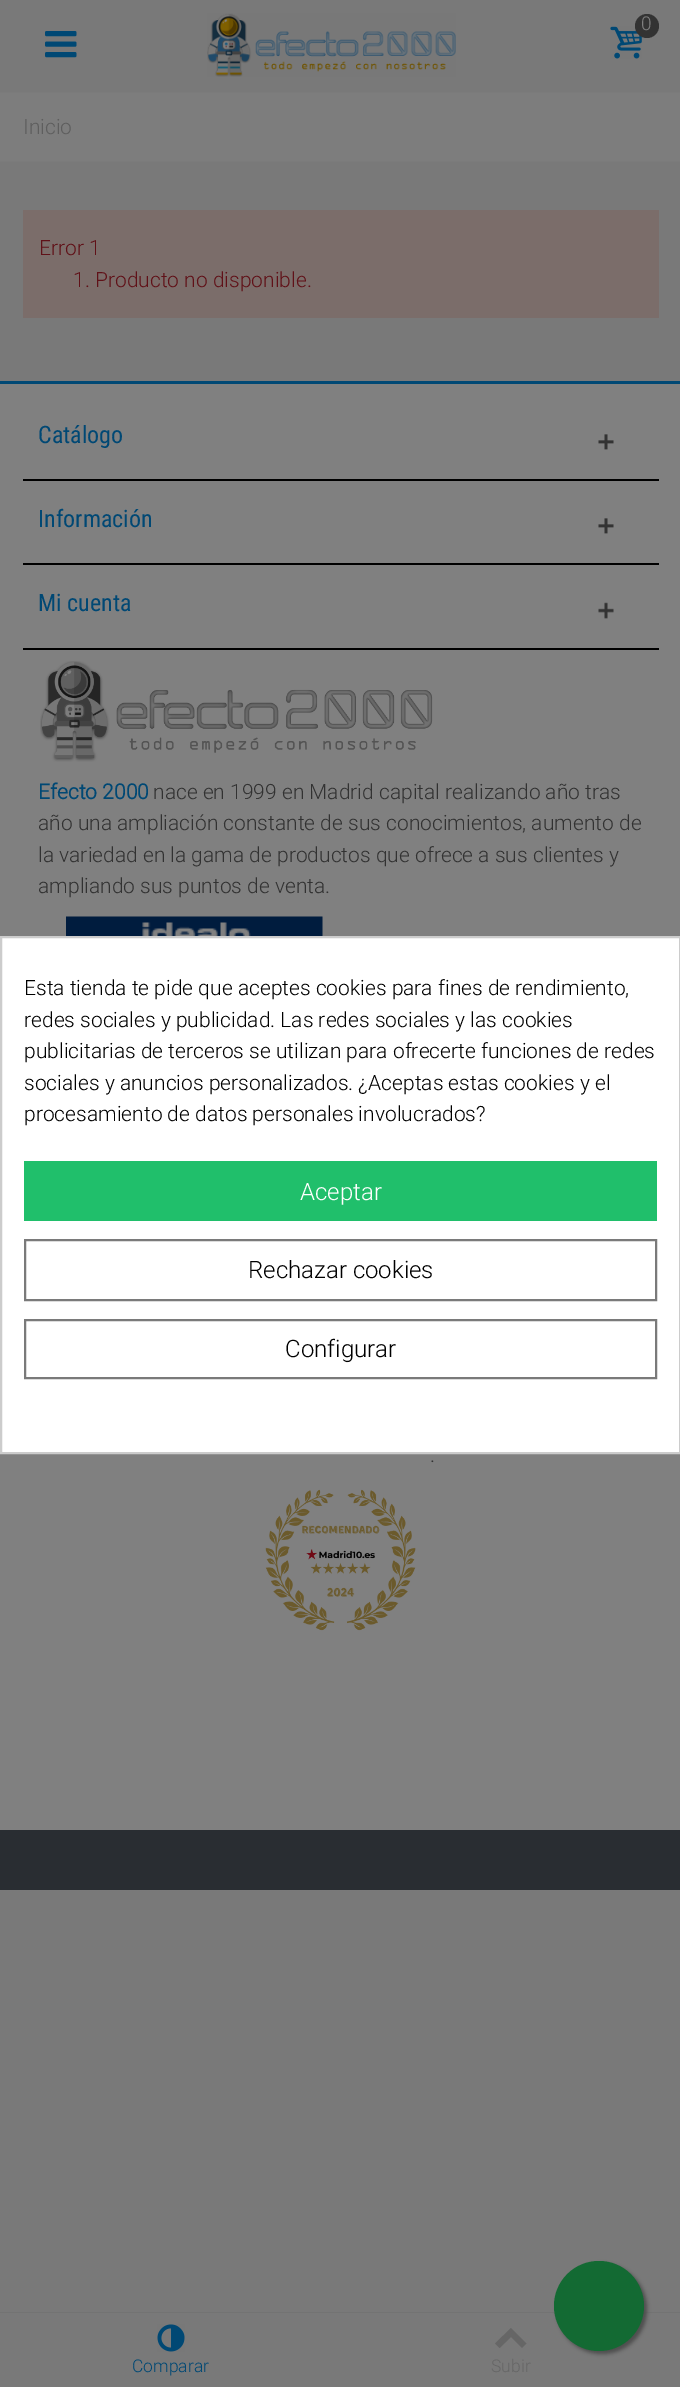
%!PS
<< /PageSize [680 2387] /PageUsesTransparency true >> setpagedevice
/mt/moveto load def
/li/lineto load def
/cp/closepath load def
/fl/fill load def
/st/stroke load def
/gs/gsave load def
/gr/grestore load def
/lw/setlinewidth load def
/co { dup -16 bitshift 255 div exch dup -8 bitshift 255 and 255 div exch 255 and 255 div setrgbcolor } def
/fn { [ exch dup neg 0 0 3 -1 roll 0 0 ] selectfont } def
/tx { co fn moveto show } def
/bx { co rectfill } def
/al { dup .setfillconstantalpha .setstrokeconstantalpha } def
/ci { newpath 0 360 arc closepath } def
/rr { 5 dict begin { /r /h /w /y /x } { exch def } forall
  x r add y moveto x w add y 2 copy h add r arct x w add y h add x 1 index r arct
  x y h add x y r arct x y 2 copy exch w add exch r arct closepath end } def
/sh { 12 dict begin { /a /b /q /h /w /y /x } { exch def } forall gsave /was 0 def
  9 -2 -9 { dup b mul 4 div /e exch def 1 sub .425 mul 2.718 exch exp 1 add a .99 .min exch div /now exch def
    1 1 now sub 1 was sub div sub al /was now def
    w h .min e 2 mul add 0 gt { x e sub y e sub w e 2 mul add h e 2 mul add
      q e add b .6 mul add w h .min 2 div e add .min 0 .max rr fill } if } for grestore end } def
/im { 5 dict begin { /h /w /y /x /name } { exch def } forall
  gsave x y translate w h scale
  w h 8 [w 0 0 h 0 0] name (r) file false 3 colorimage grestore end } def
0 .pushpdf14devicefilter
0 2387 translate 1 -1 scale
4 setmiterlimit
0 0 680 2387 16#797979 bx
(media/1.raw) 207 13 249 64 im
(media/2.raw) 610 26 32 33 im
16#333333 co
647 26 12 ci fl
(media/3.raw) 45 31 32 27 im
gs 0 92 mt 680 92 li 680 162 li 0 162 li cp clip newpath
<< /ShadingType 2 /ColorSpace /DeviceRGB /Coords [341 90 341 164] /Extend [true true] /Function << /FunctionType 3 /Domain [0 1] /Functions [<< /FunctionType 2 /Domain [0 1] /C0 [.475 .475 .475] /C1 [.49 .49 .49] /N 1 >> << /FunctionType 2 /Domain [0 1] /C0 [.49 .49 .49] /C1 [.49 .49 .49] /N 1 >> << /FunctionType 2 /Domain [0 1] /C0 [.49 .49 .49] /C1 [.475 .475 .475] /N 1 >>] /Bounds [.05 .95] /Encode [0 1 0 1 0 1] >> >> shfill gr
23 210 636 108 16#7B6D6A bx
0 384 680 1446 16#808080 bx
0 381 680 3 16#004874 bx
23 479 636 2 16#000000 bx
(media/4.raw) 598 434 16 16 im
23 563 636 2 16#000000 bx
(media/4.raw) 598 518 16 16 im
23 648 636 2 16#000000 bx
(media/5.raw) 598 602 16 17 im
(media/6.raw) 40 661 393 101 im
(media/7.raw) 66 916 257 20 im
(media/8.raw) 265 1489 151 142 im
0 2312 680 1 16#737373 bx
16#4D4D4D co
557 2264 90 90 45 2 1 sh
16#136A33 co
599 2306 45 ci fl
0 1830 680 60 16#292D32 bx
16#FFFFFF co
1 937 mt 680 937 li 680 1453 li 1 1453 li cp gs fl gr
16#CCCCCC co
2 lw
st
24 1161 633 60 16#20BF6B bx
16#7A7A7A co
25 1240 631 60 rectstroke
25 1320 631 58 rectstroke
(media/9.raw) 157 2324 28 28 im
16#666666 co
495 2343.5 mt 511 2328 li 526.5 2343.5 li 522 2348 li 511 2337 li 499.5 2348 li cp fl
(0) 641 30 /Roboto-Light 19 16#808080 tx
(Inicio) 23 134 /Roboto-Light 21 16#5E5E5E tx
(Error 1) 39 255 /Roboto-Light 21 16#601118 tx
(1. Producto no disponible.) 73 287 /Roboto-Light 21 16#601118 tx
(Catálogo) 38 443 /RobotoCondensed-Regular 24 16#004874 tx
(Información) 38 527 /RobotoCondensed-Regular 24 16#004874 tx
(Mi cuenta) 38 611 /RobotoCondensed-Regular 24 16#004874 tx
(Efecto 2000) 38 799 /Roboto-Bold 21 16#004874 tx
(nace en 1999 en Madrid capital realizando año tras) 153 799 /Roboto-Light 21 16#323232 tx
(año una ampliación constante de sus conocimientos, aumento de) 38 830 /Roboto-Light 21 16#323232 tx
(la variedad en la gama de productos que ofrece a sus clientes y) 38 862 /Roboto-Light 21 16#323232 tx
(ampliando sus puntos de venta.) 38 893 /Roboto-Light 21 16#323232 tx
(.) 430 1462 /Roboto-Light 21 16#323232 tx
(Esta tienda te pide que aceptes cookies para fines de rendimiento,) 24 995 /Roboto-Light 21 16#000000 tx
(redes sociales y publicidad. Las redes sociales y las cookies) 24 1027 /Roboto-Light 21 16#000000 tx
(publicitarias de terceros se utilizan para ofrecerte funciones de redes) 24 1058 /Roboto-Light 21 16#000000 tx
(sociales y anuncios personalizados. ¿Aceptas estas cookies y el) 24 1090 /Roboto-Light 21 16#000000 tx
(procesamiento de datos personales involucrados?) 24 1121 /Roboto-Light 21 16#000000 tx
(Aceptar) 300 1200 /Roboto-Light 24 16#FFFFFF tx
(Rechazar cookies) 248 1278 /Roboto-Light 24 16#000000 tx
(Configurar) 285 1357 /Roboto-Light 24 16#000000 tx
(Comparar) 132 2372 /Roboto-Light 17.5 16#004874 tx
(Subir) 491 2372 /Roboto-Light 17.5 16#666666 tx
.poppdf14devicefilter showpage
